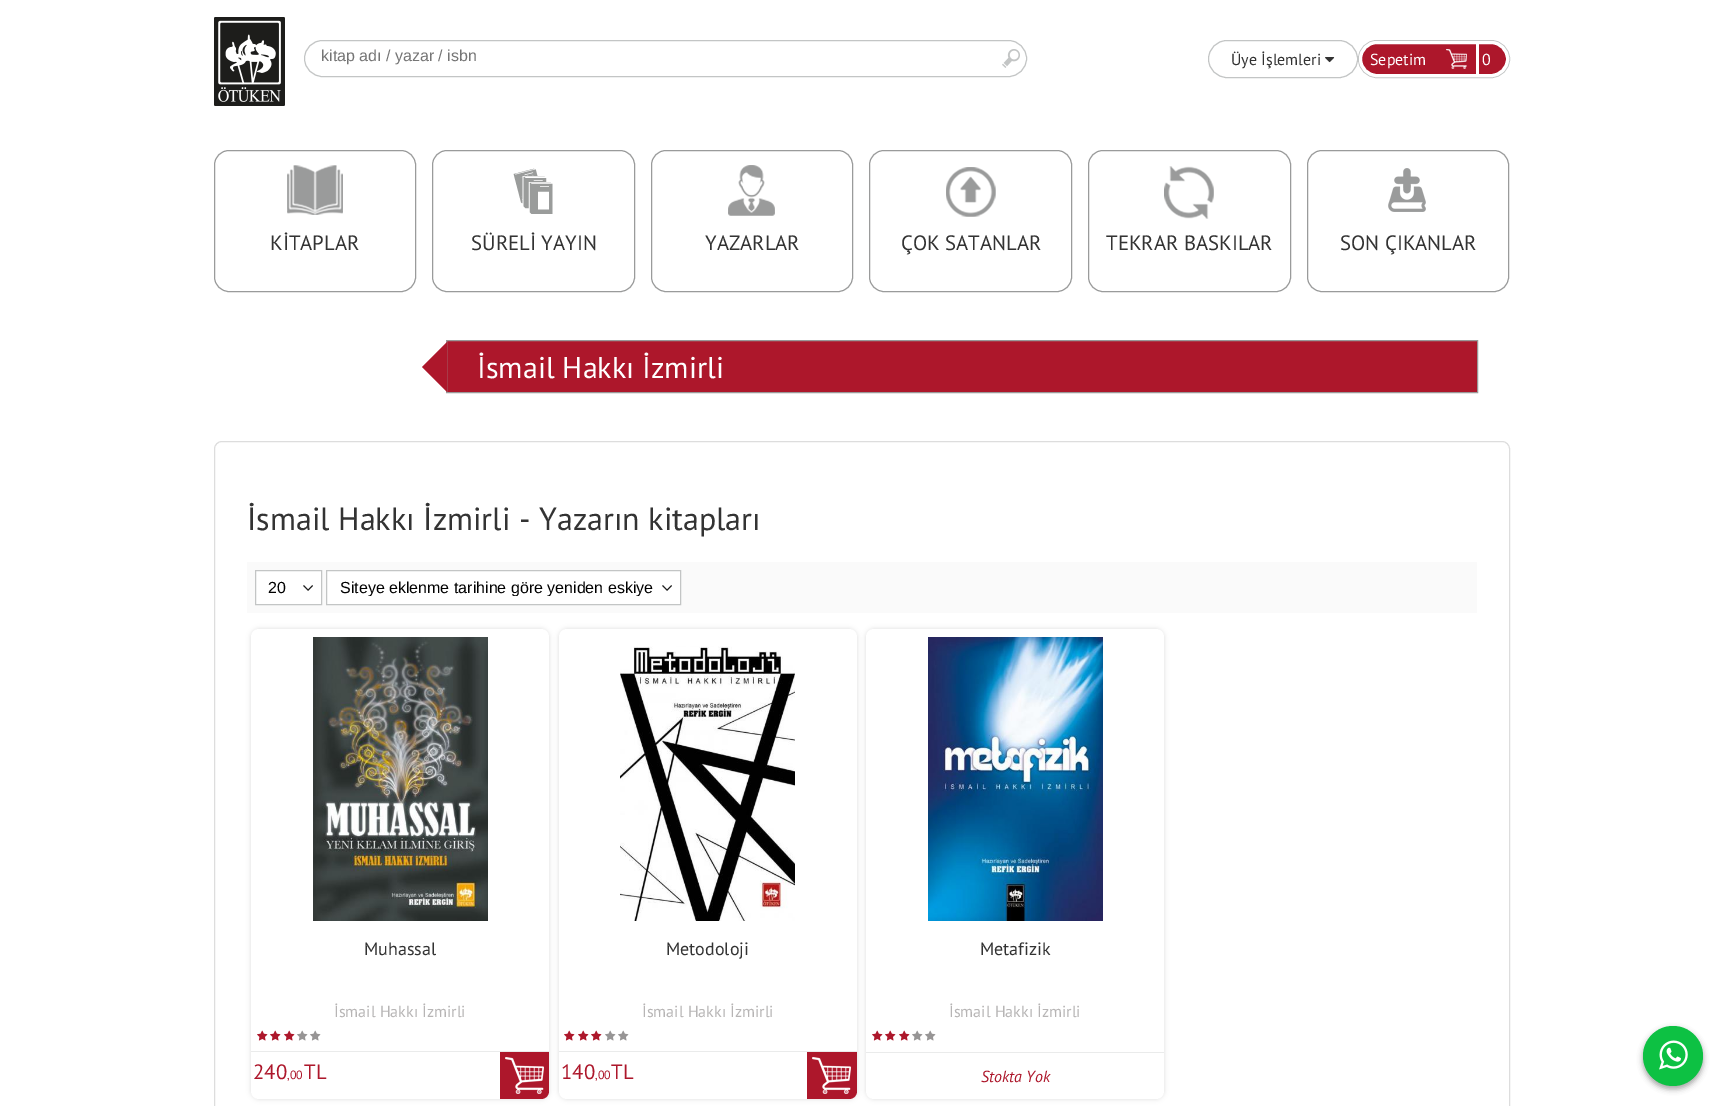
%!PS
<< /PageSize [1723 1106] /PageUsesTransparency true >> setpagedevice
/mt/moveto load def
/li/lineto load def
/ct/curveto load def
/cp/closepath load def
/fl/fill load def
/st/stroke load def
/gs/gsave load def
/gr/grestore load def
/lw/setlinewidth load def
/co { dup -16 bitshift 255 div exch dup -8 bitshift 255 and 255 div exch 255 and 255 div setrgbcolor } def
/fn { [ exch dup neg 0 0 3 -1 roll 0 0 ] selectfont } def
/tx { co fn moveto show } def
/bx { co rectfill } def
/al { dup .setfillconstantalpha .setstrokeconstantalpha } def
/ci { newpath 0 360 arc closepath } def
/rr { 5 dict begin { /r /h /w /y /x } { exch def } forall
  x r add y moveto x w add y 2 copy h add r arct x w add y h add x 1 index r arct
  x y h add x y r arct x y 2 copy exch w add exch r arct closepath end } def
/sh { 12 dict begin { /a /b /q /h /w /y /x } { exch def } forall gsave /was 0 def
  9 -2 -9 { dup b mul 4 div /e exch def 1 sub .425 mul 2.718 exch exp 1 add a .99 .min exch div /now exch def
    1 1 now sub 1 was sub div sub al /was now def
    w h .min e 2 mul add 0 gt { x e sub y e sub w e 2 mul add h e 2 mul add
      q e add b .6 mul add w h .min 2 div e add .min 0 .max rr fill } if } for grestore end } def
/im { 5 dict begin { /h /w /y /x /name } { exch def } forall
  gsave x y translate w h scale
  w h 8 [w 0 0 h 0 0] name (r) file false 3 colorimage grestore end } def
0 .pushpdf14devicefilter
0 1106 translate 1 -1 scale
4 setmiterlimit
0 0 1723 1106 16#FFFFFF bx
(media/1.raw) 214 17 71 89 im
16#C3C5C5 co
304.5 40.5 722 36 18 rr st
(media/2.raw) 1002 49 18 19 im
1208.5 40.5 149 37 18.5 rr st
(media/3.raw) 1325 57 10 6 im
1358.5 40.5 151 37 18.5 rr st
16#AD172B co
1360.5 42.5 147 33 16.5 rr gs fl gr
16#FFFFFF co
3 lw
st
(media/4.raw) 1446 49 21 20 im
1476 44 3 30 16#FFFFFF bx
16#9A9B9B co
1 lw
214.5 150.5 201 141 14.5 rr st
(media/5.raw) 287 165 56 50 im
432.5 150.5 202 141 14.5 rr st
(media/6.raw) 513 168 40 46 im
651.5 150.5 201 141 14.5 rr st
(media/7.raw) 728 165 47 51 im
869.5 150.5 202 141 14.5 rr st
(media/8.raw) 946 167 50 50 im
1088.5 150.5 202 141 14.5 rr st
(media/9.raw) 1164 166 50 53 im
1307.5 150.5 201 141 14.5 rr st
(media/10.raw) 1388 168 38 44 im
16#AD172B co
446.5 340.5 mt 1477.5 340.5 li 1477.5 392.5 li 446.5 392.5 li cp gs fl gr
16#999999 co
st
16#AD172B co
447 342 mt 447 392 li 422 367 li cp fl
16#DDDDDD co
214.5 441.5 1295 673 7.5 rr st
247 562 1230 51 16#FAFAFA bx
256 571 65 33 16#FFFFFF bx
(media/11.raw) 303 585 10 6 im
16#C3C5C5 co
255.5 570.5 66 34 rectstroke
327 571 353 33 16#FFFFFF bx
(media/11.raw) 662 585 10 6 im
16#C3C5C5 co
326.5 570.5 354 34 rectstroke
16#DBDBDB co
251 629 298 470 8 2.5 1 sh
16#FFFFFF co
251 629 298 470 8 rr fl
(media/12.raw) 313 637 175 284 im
(media/13.raw) 257 1030 11 11 im
(media/13.raw) 270 1030 11 11 im
(media/13.raw) 284 1030 11 11 im
(media/14.raw) 297 1030 11 11 im
(media/14.raw) 310 1030 11 11 im
251 1051 298 1 16#EAEBEB bx
16#AD172B co
500 1052 mt 549 1052 li 549 1091 li 549 1095.5 545.5 1099 541 1099 ct 500 1099 li cp fl
(media/15.raw) 505 1057 39 37 im
16#DBDBDB co
559 629 298 470 8 2.5 1 sh
16#FFFFFF co
559 629 298 470 8 rr fl
(media/16.raw) 620 646 175 275 im
(media/13.raw) 564 1030 11 11 im
(media/13.raw) 578 1030 11 11 im
(media/13.raw) 591 1030 11 11 im
(media/14.raw) 605 1030 11 11 im
(media/14.raw) 618 1030 11 11 im
559 1051 298 1 16#EAEBEB bx
16#AD172B co
807 1052 mt 857 1052 li 857 1091 li 857 1095.5 853.5 1099 849 1099 ct 807 1099 li cp fl
(media/15.raw) 812 1057 39 37 im
16#DBDBDB co
866 629 298 470 8 2.5 1 sh
16#FFFFFF co
866 629 298 470 8 rr fl
(media/17.raw) 928 637 175 284 im
(media/13.raw) 872 1030 11 11 im
(media/13.raw) 885 1030 11 11 im
(media/13.raw) 899 1030 11 11 im
(media/14.raw) 912 1030 11 11 im
(media/14.raw) 925 1030 11 11 im
866 1052 298 1 16#EAEBEB bx
16#000000 co
1643 1029 60 60 30 3 .23 sh
1643 1029 60 60 30 3 .16 sh
16#0DC143 co
1673 1056 30 ci fl
(media/18.raw) 1659 1040 29 30 im
(kitap adı / yazar / isbn) 321 61 /LiberationSans-Regular 16 16#757575 tx
(Üye İşlemleri) 1231 65 /PTSans-Regular 16 16#333333 tx
(Sepetim) 1370 65 /PTSans-Regular 16 16#FFFFFF tx
(0) 1482 65 /PTSans-Regular 16 16#FFFFFF tx
(KİTAPLAR) 270 250 /PTSans-Regular 20.75 16#333333 tx
(SÜRELİ YAYIN) 471 250 /PTSans-Regular 20.75 16#333333 tx
(YAZARLAR) 705 250 /PTSans-Regular 20.75 16#333333 tx
(ÇOK SATANLAR) 901 250 /PTSans-Regular 20.75 16#333333 tx
(TEKRAR BASKILAR) 1106 250 /PTSans-Regular 20.75 16#333333 tx
(SON ÇIKANLAR) 1340 250 /PTSans-Regular 20.75 16#333333 tx
(İsmail Hakkı İzmirli) 477 378 /PTSans-Regular 30 16#FFFFFF tx
(İsmail Hakkı İzmirli - Yazarın kitapları) 247 530 /PTSans-Regular 32 16#333333 tx
(20) 268 593 /LiberationSans-Regular 16 16#000000 tx
gs
340 579 314 17 rectclip
(Siteye eklenme tarihine göre yeniden eskiye) 340 593 /LiberationSans-Regular 16 16#000000 tx
gr
(Muhassal) 364 955 /PTSans-Regular 18 16#333333 tx
(İsmail Hakkı İzmirli) 334 1017 /PTSans-Regular 16 16#B7B5B5 tx
(240) 253 1079 /PTSans-Regular 20.75 16#AD172B tx
(,00) 287 1079 /PTSans-Regular 12 16#AD172B tx
(TL) 304 1079 /PTSans-Regular 20.75 16#AD172B tx
(Metodoloji) 666 955 /PTSans-Regular 18 16#333333 tx
(İsmail Hakkı İzmirli) 642 1017 /PTSans-Regular 16 16#B7B5B5 tx
(140) 561 1079 /PTSans-Regular 20.75 16#AD172B tx
(,00) 595 1079 /PTSans-Regular 12 16#AD172B tx
(TL) 611 1079 /PTSans-Regular 20.75 16#AD172B tx
(Metafizik) 980 955 /PTSans-Regular 18 16#333333 tx
(İsmail Hakkı İzmirli) 949 1017 /PTSans-Regular 16 16#B7B5B5 tx
(Stokta Yok) 981 1082 /PTSans-Italic 16 16#AD172B tx
.poppdf14devicefilter showpage
